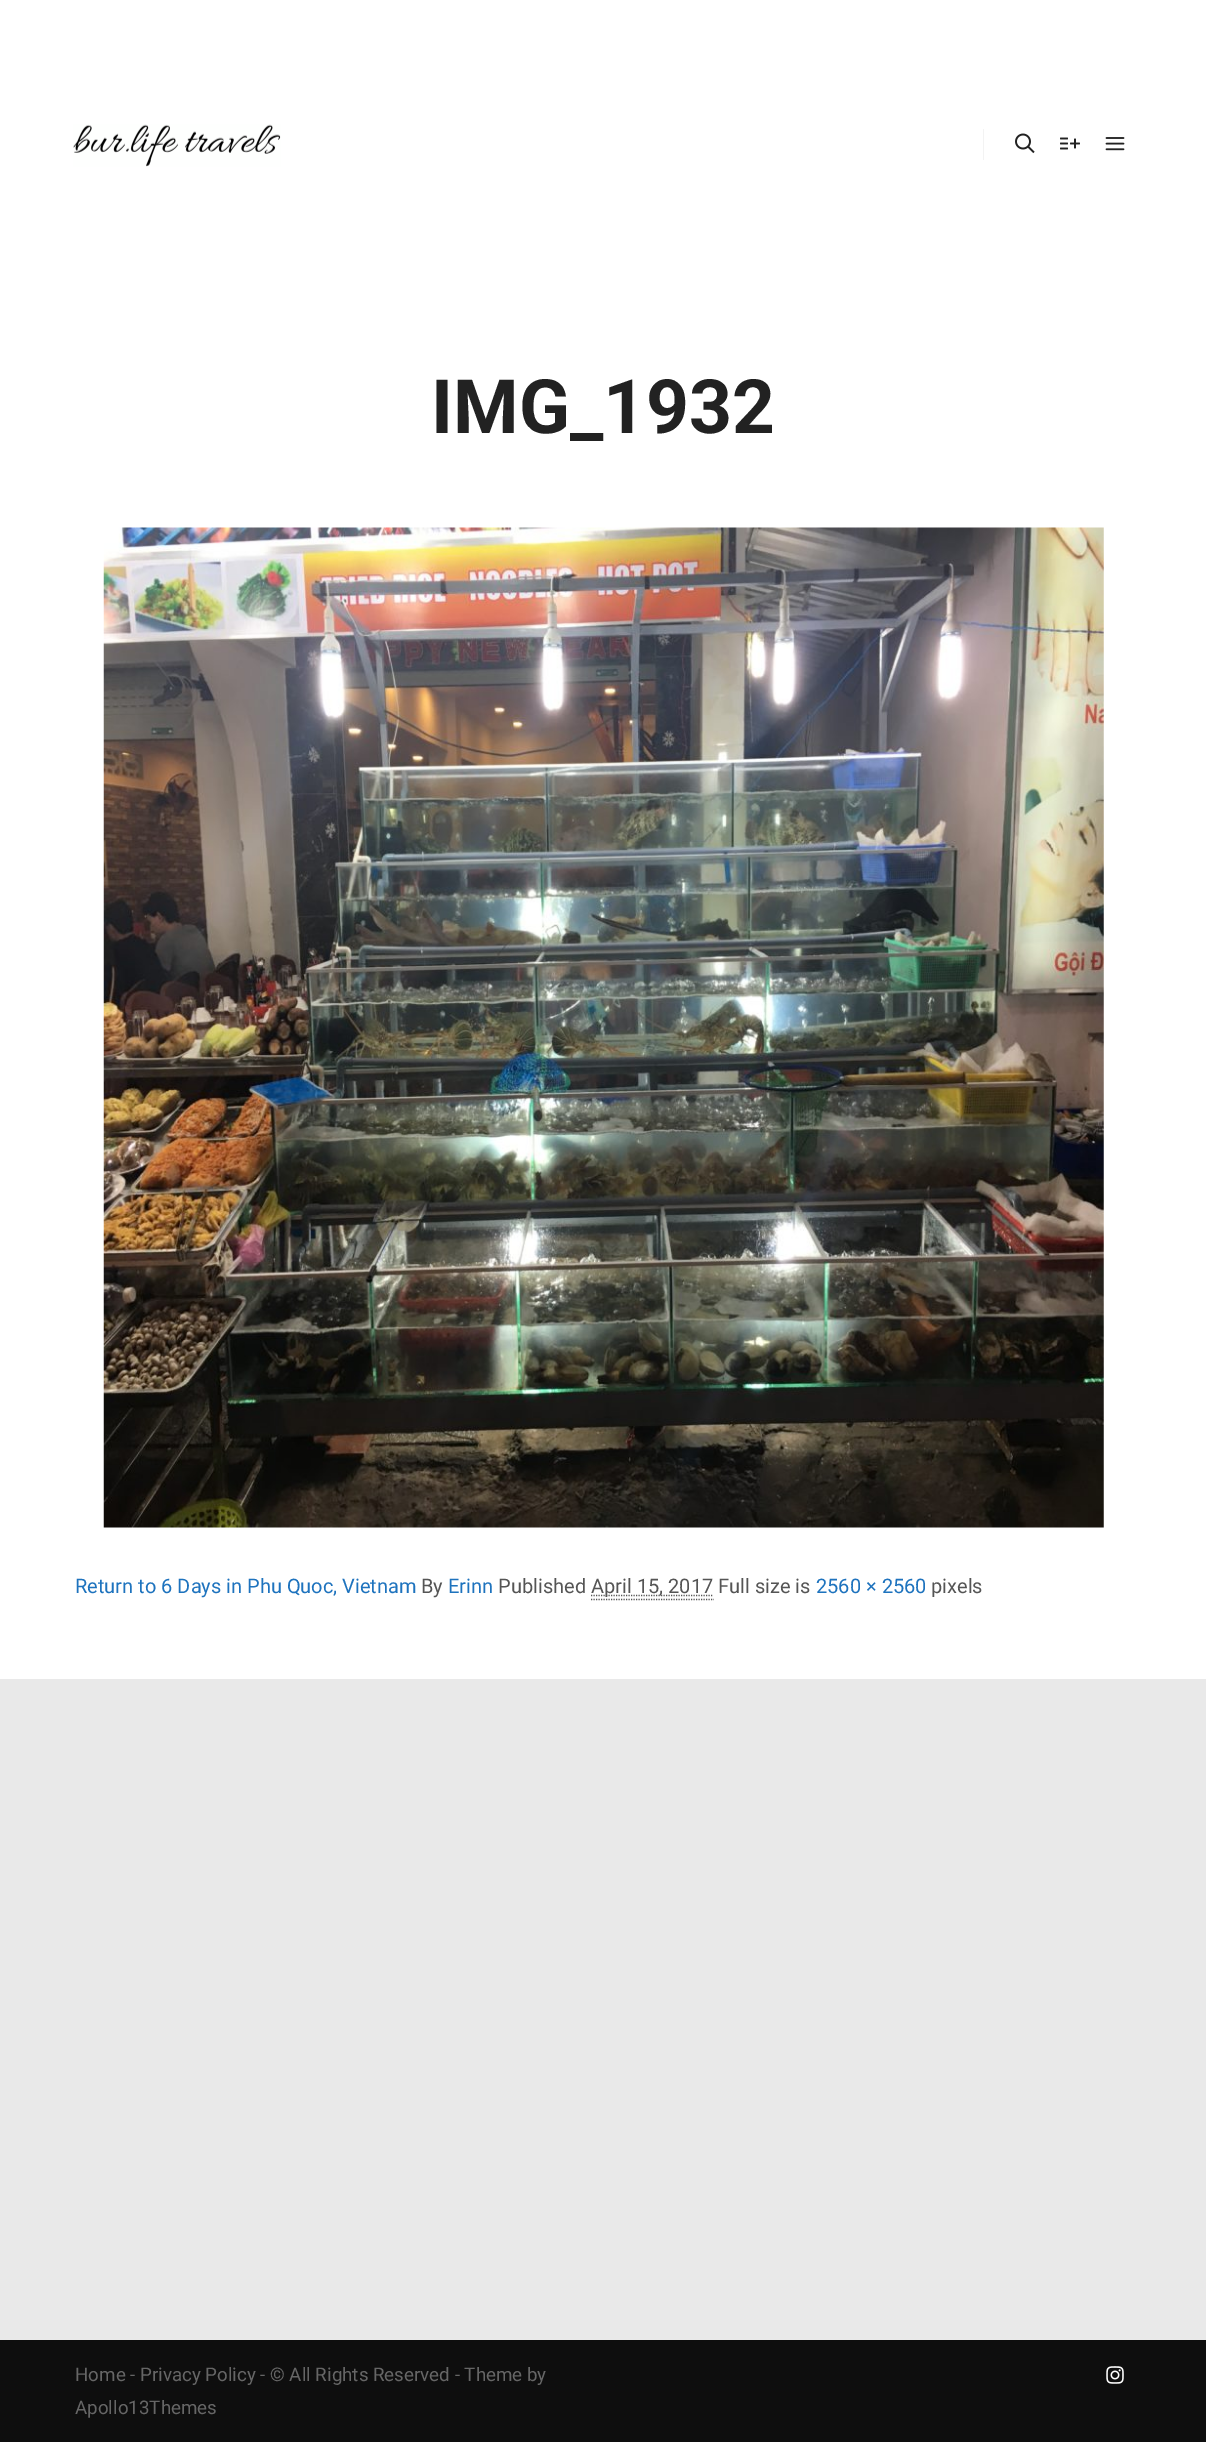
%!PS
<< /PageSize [1206 2442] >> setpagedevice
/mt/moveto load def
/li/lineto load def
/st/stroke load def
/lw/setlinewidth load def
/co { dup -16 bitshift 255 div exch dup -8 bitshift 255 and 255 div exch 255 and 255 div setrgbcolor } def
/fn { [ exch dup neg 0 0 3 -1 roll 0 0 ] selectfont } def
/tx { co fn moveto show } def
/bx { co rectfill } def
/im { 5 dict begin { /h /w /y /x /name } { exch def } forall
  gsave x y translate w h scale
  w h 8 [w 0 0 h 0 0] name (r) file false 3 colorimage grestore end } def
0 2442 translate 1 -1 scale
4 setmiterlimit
0 0 1206 2442 16#E9E9E9 bx
0 0 1206 1679 16#FFFFFF bx
(media/1.raw) 73 124 208 43 im
983 129 1 31 16#F3F3F3 bx
(media/2.raw) 1015 133 20 21 im
(media/3.raw) 1060 137 20 13 im
(media/4.raw) 1105 137 20 14 im
(media/5.raw) 103 527 1001 1001 im
16#555555 co
1.2 lw
[1.25 1.25] 0 setdash
591 1599.5 mt 714 1599.5 li st
591 1595.5 mt 713 1595.5 li st
0 2340 1206 102 16#0E0E0E bx
(media/6.raw) 1106 2366 18 18 im
(IMG_1932) 431 433 /Roboto-Bold 75 16#222222 tx
(Return to 6 Days in Phu Quoc, Vietnam) 75 1593 /Roboto-Regular 20 16#1E73BE tx
(By) 421 1593 /Roboto-Regular 20 16#555555 tx
(Erinn) 448 1593 /Roboto-Regular 20 16#1E73BE tx
(Published) 498 1593 /Roboto-Regular 20 16#555555 tx
(April 15, 2017 Full size is) 591 1593 /Roboto-Regular 20 16#555555 tx
(2560 × 2560) 816 1593 /Roboto-Regular 20 16#1E73BE tx
(pixels) 931 1593 /Roboto-Regular 20 16#555555 tx
(Home - Privacy Policy - © All Rights Reserved - Theme by) 75 2381 /Roboto-Regular 18.75 16#666666 tx
(Apollo13Themes) 75 2414 /Roboto-Regular 18.75 16#666666 tx
showpage
